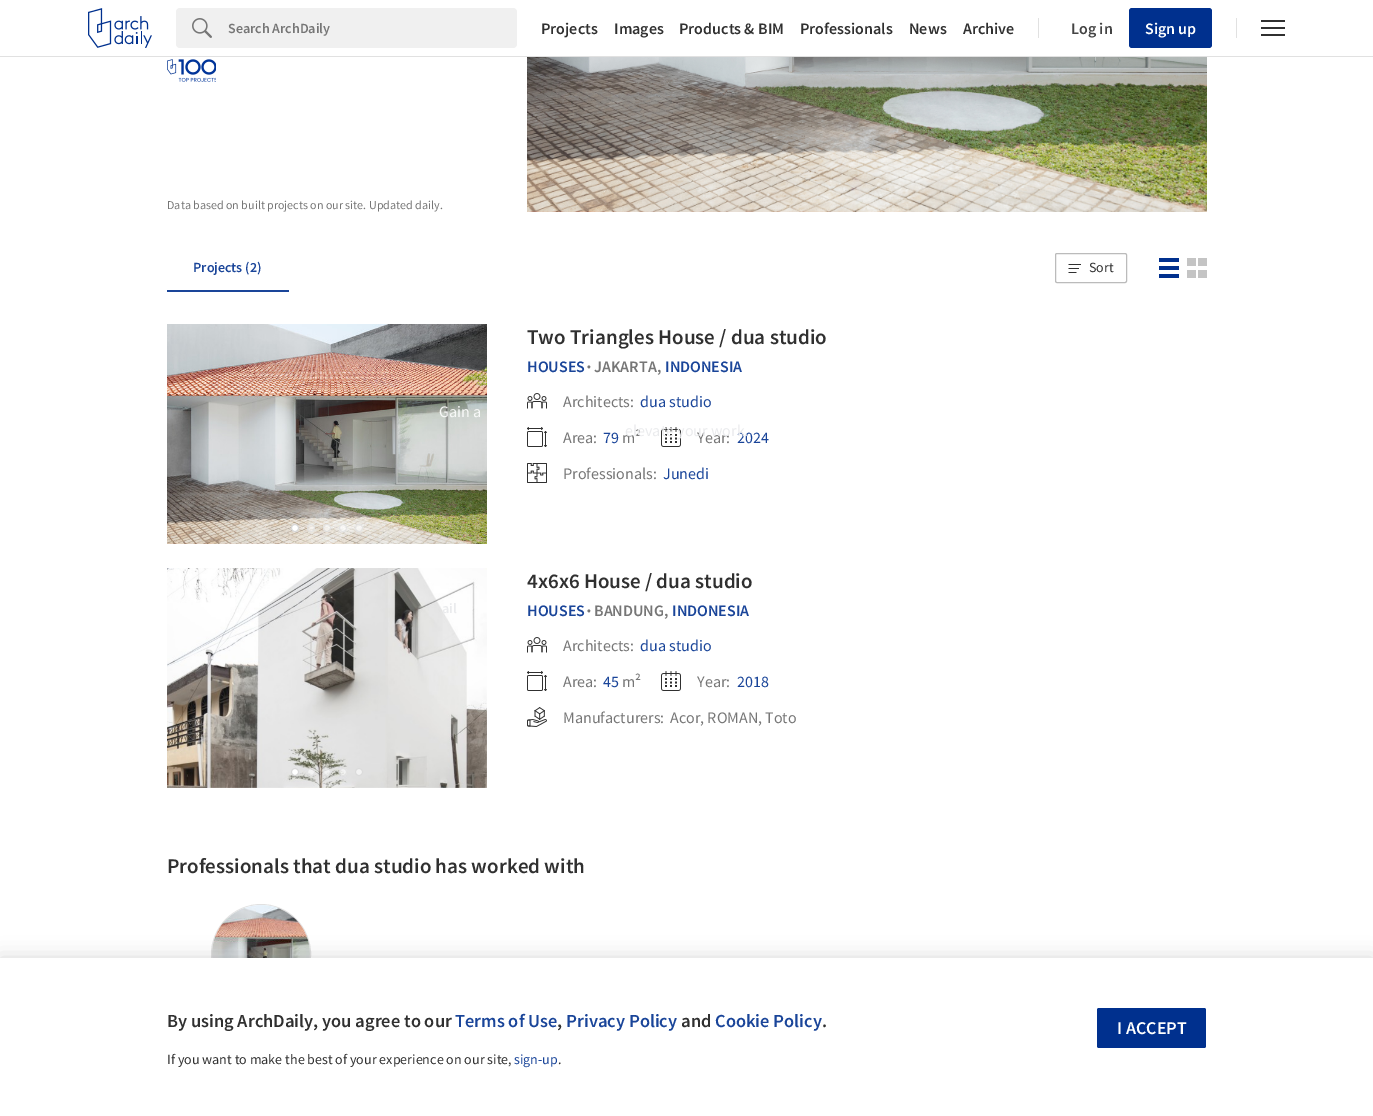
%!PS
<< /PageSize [1373 1116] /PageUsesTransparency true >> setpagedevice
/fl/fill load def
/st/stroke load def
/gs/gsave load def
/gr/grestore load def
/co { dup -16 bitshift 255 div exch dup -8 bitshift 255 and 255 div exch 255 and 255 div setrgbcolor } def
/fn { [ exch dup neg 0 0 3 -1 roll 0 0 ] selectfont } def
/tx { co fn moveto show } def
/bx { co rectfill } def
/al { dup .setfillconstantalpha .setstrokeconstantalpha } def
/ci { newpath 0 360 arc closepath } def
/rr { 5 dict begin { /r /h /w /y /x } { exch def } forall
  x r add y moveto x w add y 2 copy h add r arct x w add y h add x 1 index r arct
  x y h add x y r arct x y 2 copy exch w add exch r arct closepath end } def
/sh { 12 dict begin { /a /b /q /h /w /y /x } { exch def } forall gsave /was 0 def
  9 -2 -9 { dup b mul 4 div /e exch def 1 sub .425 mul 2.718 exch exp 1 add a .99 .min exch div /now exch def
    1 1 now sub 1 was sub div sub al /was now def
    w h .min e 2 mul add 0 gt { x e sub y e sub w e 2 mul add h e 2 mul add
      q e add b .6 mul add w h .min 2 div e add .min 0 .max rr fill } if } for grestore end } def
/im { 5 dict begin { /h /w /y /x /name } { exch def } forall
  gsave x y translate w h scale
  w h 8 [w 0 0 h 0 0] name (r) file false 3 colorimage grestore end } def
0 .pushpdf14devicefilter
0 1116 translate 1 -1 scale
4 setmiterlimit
0 0 1373 1116 16#FFFFFF bx
0 56 1373 1 16#E1E1E1 bx
(media/1.raw) 88 8 64 40 im
16#F0F0F0 co
176 8 341 40 4 rr fl
(media/2.raw) 192 18 20 20 im
1038 18 1 20 16#E1E1E1 bx
16#00308E co
1129 8 83 40 3 rr fl
1236 18 1 20 16#E1E1E1 bx
1261 27 24 2 16#303030 bx
1261 20 24 2 16#303030 bx
1261 34 24 2 16#303030 bx
16#E1E1E1 co
261 954 49.5 ci st
(media/13.raw) 212 905 98 53 im
16#000000 co
0 958 1373 158 0 10 .15 sh
0 958 1373 158 16#FFFFFF bx
16#00308E co
1097 1008 109 40 2 rr fl
(media/3.raw) 167 59 49 23 im
(media/4.raw) 527 57 680 155 im
167 290 122 2 16#1A4599 bx
16#BBBBBB co
1055.5 253.5 71 29 1.5 rr st
(media/5.raw) 1068 264 13 9 im
1159 258 20 4 16#00308E bx
1159 266 20 4 16#00308E bx
1159 274 20 4 16#00308E bx
1187 258 9 8 16#C4C4C4 bx
1198 258 9 8 16#C4C4C4 bx
1187 270 9 8 16#C4C4C4 bx
1198 270 9 8 16#C4C4C4 bx
(media/6.raw) 167 324 320 220 im
16#FFFFFF co
295 528 3.5 ci gs fl gr
16#D8D8D8 co
st
0.6 al
16#FFFFFF co
311 528 4 ci fl
16#D8D8D8 co
311 528 3.5 ci st
16#FFFFFF co
327 528 4 ci fl
16#D8D8D8 co
327 528 3.5 ci st
16#FFFFFF co
343 528 4 ci fl
16#D8D8D8 co
343 528 3.5 ci st
16#FFFFFF co
359 528 4 ci fl
16#D8D8D8 co
359 528 3.5 ci st
1 al
(media/7.raw) 527 393 20 16 im
(media/8.raw) 527 427 20 20 im
(media/9.raw) 661 427 20 20 im
(media/10.raw) 527 463 20 20 im
(media/11.raw) 167 568 320 220 im
16#FFFFFF co
295 772 3.5 ci gs fl gr
16#D8D8D8 co
st
0.6 al
16#FFFFFF co
311 772 4 ci fl
16#D8D8D8 co
311 772 3.5 ci st
16#FFFFFF co
327 772 4 ci fl
16#D8D8D8 co
327 772 3.5 ci st
16#FFFFFF co
343 772 4 ci fl
16#D8D8D8 co
343 772 3.5 ci st
1 al
16#F3F3F3 co
359 772 3.5 ci gs fl gr
16#DBDBDB co
st
(media/7.raw) 527 637 20 16 im
(media/8.raw) 527 671 20 20 im
(media/9.raw) 661 671 20 20 im
(media/12.raw) 527 707 20 20 im
(Search ArchDaily) 228 33 /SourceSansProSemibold-SemiBold 14 16#767676 tx
(Projects) 541 34 /SourceSansProSemibold-SemiBold 16 16#303030 tx
(Images) 614 34 /SourceSansProSemibold-SemiBold 16 16#303030 tx
(Products & BIM) 679 34 /SourceSansProSemibold-SemiBold 16 16#303030 tx
(Professionals) 800 34 /SourceSansProSemibold-SemiBold 16 16#303030 tx
(News) 909 34 /SourceSansProSemibold-SemiBold 16 16#303030 tx
(Archive) 963 34 /SourceSansProSemibold-SemiBold 16 16#303030 tx
(Log in) 1071 34 /SourceSansProSemibold-SemiBold 16 16#444444 tx
(Sign up) 1145 34 /SourceSansProSemibold-SemiBold 16 16#FFFFFF tx
(By using ArchDaily, you agree to our) 167 1027 /SourceSansProSemibold-SemiBold 18.4 16#303030 tx
(Terms of Use) 455 1027 /SourceSansProSemibold-SemiBold 18.4 16#1A4599 tx
(,) 557 1027 /SourceSansProSemibold-SemiBold 18.4 16#303030 tx
(Privacy Policy) 566 1027 /SourceSansProSemibold-SemiBold 18.4 16#1A4599 tx
(and) 681 1027 /SourceSansProSemibold-SemiBold 18.4 16#303030 tx
(Cookie Policy) 715 1027 /SourceSansProSemibold-SemiBold 18.4 16#1A4599 tx
(.) 822 1027 /SourceSansProSemibold-SemiBold 18.4 16#303030 tx
(If you want to make the best of your experience on our site,) 167 1064 /SourceSansPro-Regular 14 16#303030 tx
(sign-up) 514 1064 /SourceSansPro-Regular 14 16#1A4599 tx
(.) 558 1064 /SourceSansPro-Regular 14 16#303030 tx
(I ACCEPT) 1117 1034 /SourceSansProSemibold-SemiBold 18 16#FFFFFF tx
(Data based on built projects on our site. Updated daily.) 167 209 /SourceSansPro-Regular 12 16#767676 tx
(Projects \(2\)) 193 272 /SourceSansProSemibold-SemiBold 14 16#1A4599 tx
(Sort) 1089 272 /SourceSansPro-Regular 14 16#303030 tx
(Two Triangles House / dua studio) 527 344 /SourceSansProSemibold-SemiBold 21 16#303030 tx
(HOUSES) 527 372 /SourceSansProSemibold-SemiBold 16 16#1A4599 tx
(•) 587 370 /SourceSansProSemibold-SemiBold 12 16#767676 tx
(JAKARTA,) 594 372 /SourceSansProSemibold-SemiBold 16 16#767676 tx
(INDONESIA) 665 372 /SourceSansProSemibold-SemiBold 16 16#1A4599 tx
(Architects:) 563 407 /SourceSansPro-Regular 16 16#767676 tx
(dua studio) 640 407 /SourceSansPro-Regular 16 16#1A4599 tx
(Area:) 563 443 /SourceSansPro-Regular 16 16#767676 tx
(79) 603 443 /SourceSansPro-Regular 16 16#1A4599 tx
(m²) 622 443 /SourceSansPro-Regular 16 16#767676 tx
(Year:) 697 443 /SourceSansPro-Regular 16 16#767676 tx
(2024) 737 443 /SourceSansPro-Regular 16 16#1A4599 tx
(Professionals:) 563 479 /SourceSansPro-Regular 16 16#767676 tx
(Junedi) 663 479 /SourceSansPro-Regular 16 16#1A4599 tx
(4x6x6 House / dua studio) 527 588 /SourceSansProSemibold-SemiBold 21 16#303030 tx
(HOUSES) 527 616 /SourceSansProSemibold-SemiBold 16 16#1A4599 tx
(•) 587 614 /SourceSansProSemibold-SemiBold 12 16#767676 tx
(BANDUNG,) 594 616 /SourceSansProSemibold-SemiBold 16 16#767676 tx
(INDONESIA) 672 616 /SourceSansProSemibold-SemiBold 16 16#1A4599 tx
(Architects:) 563 651 /SourceSansPro-Regular 16 16#767676 tx
(dua studio) 640 651 /SourceSansPro-Regular 16 16#1A4599 tx
(Area:) 563 687 /SourceSansPro-Regular 16 16#767676 tx
(45) 603 687 /SourceSansPro-Regular 16 16#1A4599 tx
(m²) 622 687 /SourceSansPro-Regular 16 16#767676 tx
(Year:) 697 687 /SourceSansPro-Regular 16 16#767676 tx
(2018) 737 687 /SourceSansPro-Regular 16 16#1A4599 tx
(Manufacturers:) 563 723 /SourceSansPro-Regular 16 16#767676 tx
(Acor, ROMAN, Toto) 670 723 /SourceSansPro-Regular 16 16#767676 tx
(Professionals that dua studio has worked with) 167 873 /SourceSansProSemibold-SemiBold 21 16#303030 tx
(Gain a) 439 417 /SourceSansPro-Regular 16 16#F8F9F8 tx
(elevate your work.) 625 436 /SourceSansPro-Regular 16 16#EAEBED tx
(ail) 442 613 /SourceSansProSemibold-SemiBold 14 16#EAEBED tx
.poppdf14devicefilter showpage
